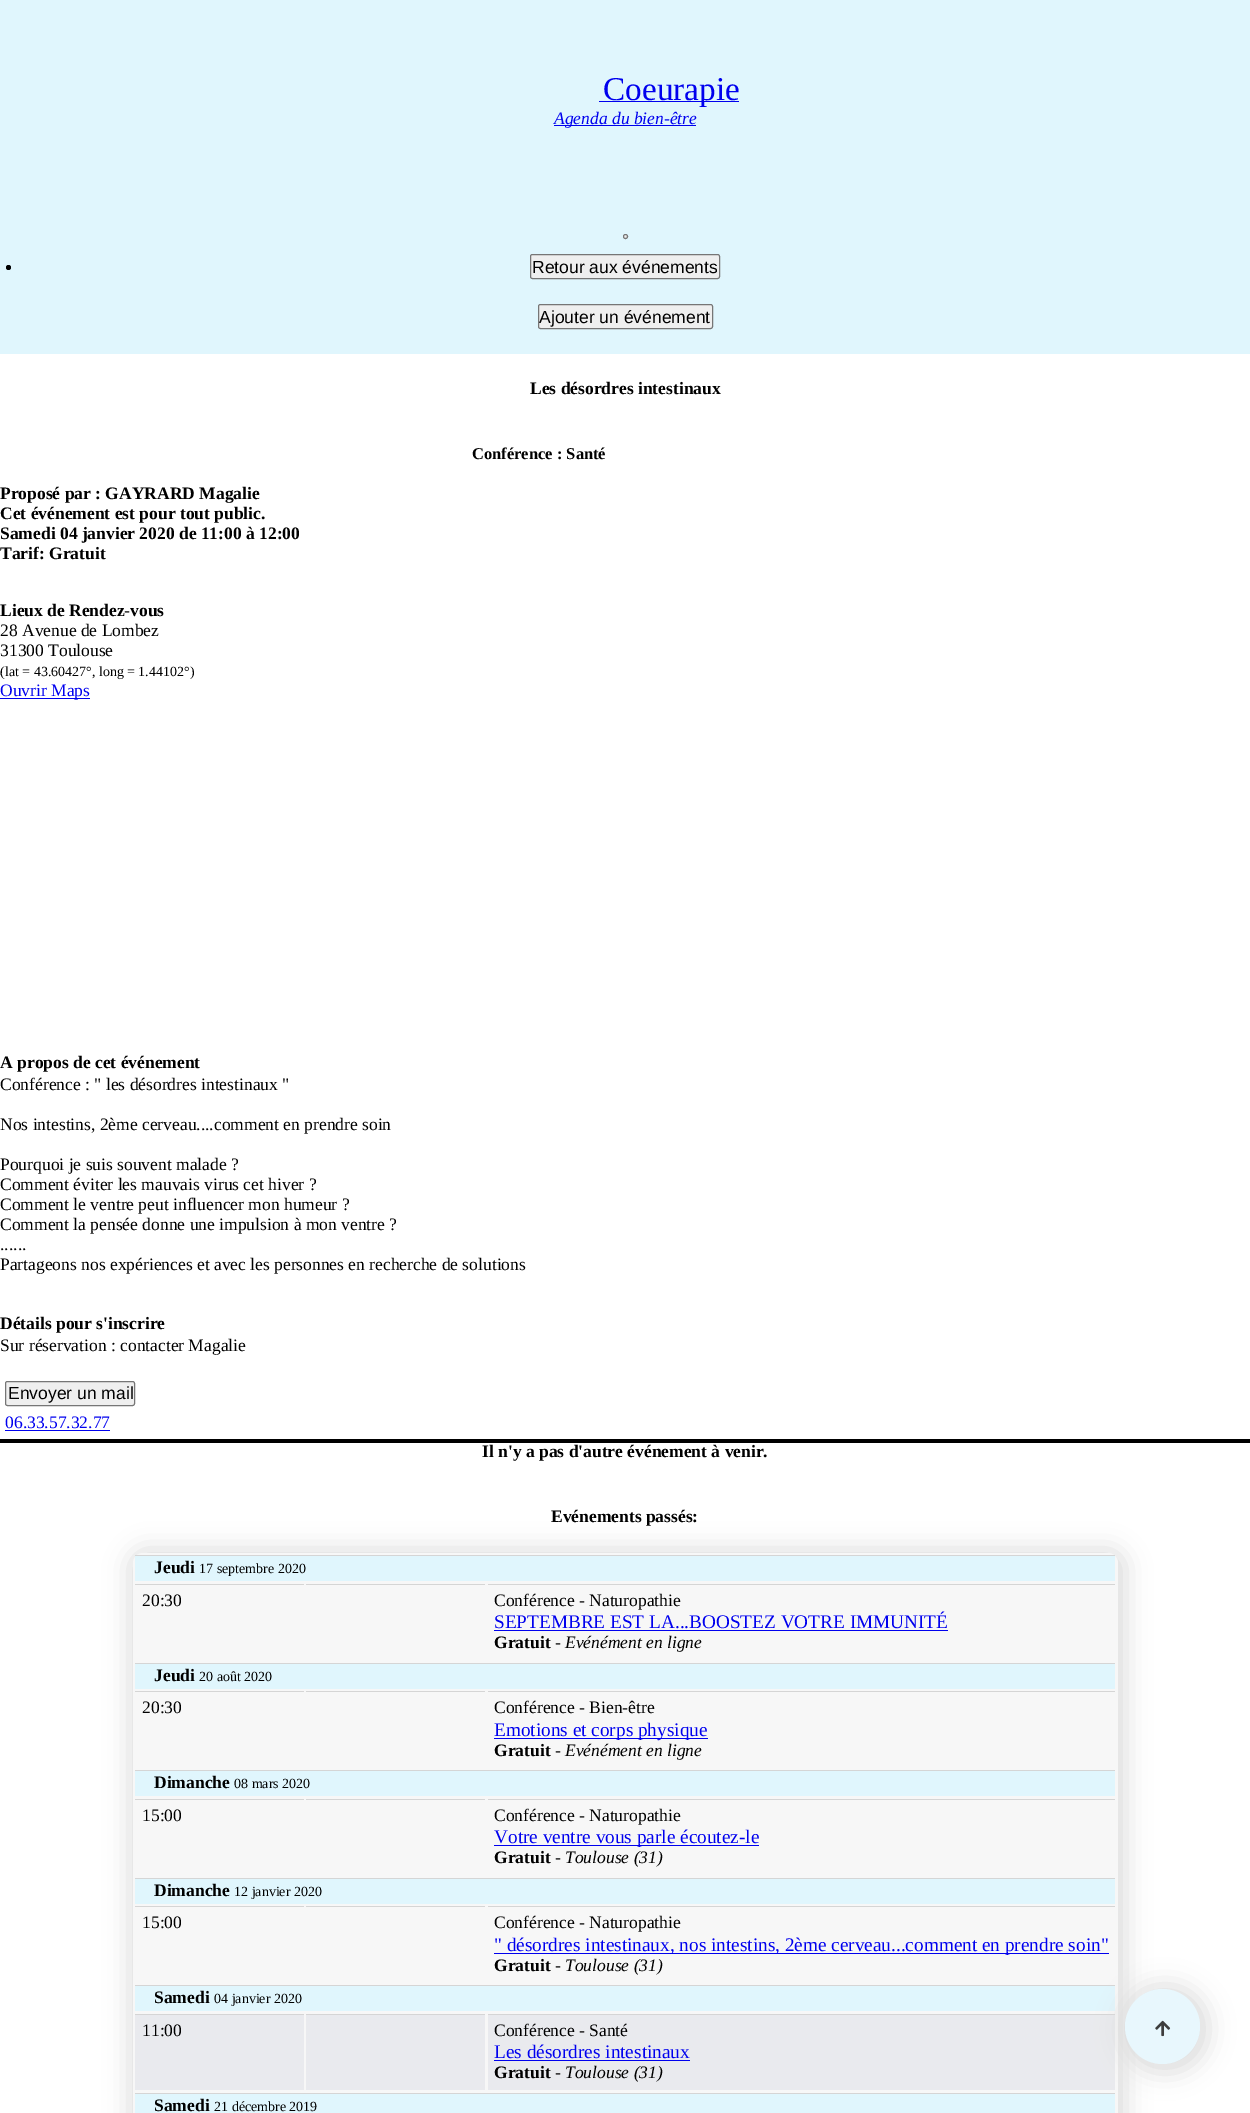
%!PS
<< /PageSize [1250 2113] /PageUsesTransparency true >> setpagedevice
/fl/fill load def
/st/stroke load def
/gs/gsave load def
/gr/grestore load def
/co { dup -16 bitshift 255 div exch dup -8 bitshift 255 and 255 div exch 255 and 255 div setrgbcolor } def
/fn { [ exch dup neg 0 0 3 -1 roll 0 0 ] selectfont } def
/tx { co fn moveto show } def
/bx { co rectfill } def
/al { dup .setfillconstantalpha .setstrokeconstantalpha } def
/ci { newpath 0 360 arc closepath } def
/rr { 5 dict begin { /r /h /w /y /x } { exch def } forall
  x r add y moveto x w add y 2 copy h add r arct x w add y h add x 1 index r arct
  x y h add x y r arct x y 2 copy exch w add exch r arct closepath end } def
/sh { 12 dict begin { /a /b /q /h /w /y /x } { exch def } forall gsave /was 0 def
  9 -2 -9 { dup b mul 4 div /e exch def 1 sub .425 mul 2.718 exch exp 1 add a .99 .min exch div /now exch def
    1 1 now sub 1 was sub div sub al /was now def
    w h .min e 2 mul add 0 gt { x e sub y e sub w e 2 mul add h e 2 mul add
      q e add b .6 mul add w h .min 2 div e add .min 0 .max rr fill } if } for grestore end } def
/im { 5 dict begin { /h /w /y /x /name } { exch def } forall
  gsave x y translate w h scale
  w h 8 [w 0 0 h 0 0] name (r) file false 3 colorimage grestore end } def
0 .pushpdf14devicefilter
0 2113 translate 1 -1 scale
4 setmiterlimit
0 0 1250 2113 16#FFFFFF bx
0 0 1250 354 16#E0F6FD bx
599 101 140 1 16#0000EE bx
554 125 142 1 16#0000EE bx
16#EFEFEF co
625.5 236.5 2 ci gs fl gr
16#767676 co
st
16#000000 co
8.5 267.5 2.5 ci fl
16#EFEFEF co
530.5 254.5 189 24 2 rr gs fl gr
16#767676 co
st
16#EFEFEF co
538.5 304.5 174 24 2 rr gs fl gr
16#767676 co
st
0 698 90 1 16#0000EE bx
16#EFEFEF co
5.5 1381.5 129 24 2 rr gs fl gr
16#767676 co
st
5 1430 105 1 16#0000EE bx
0 1439 1250 4 16#000000 bx
16#DCDCDC co
129 1549 997 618 16 12.5 1 sh
16#F7F7F7 co
133 1553 985 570 10 rr fl
135 1556 980 25 16#E0F6FD bx
135 1555 980 1 16#D5D5D5 bx
306 1584 179 1 16#D5D5D5 bx
135 1584 169 1 16#D5D5D5 bx
488 1584 627 1 16#D5D5D5 bx
494 1630 454 1 16#0000EE bx
135 1664 980 25 16#E0F6FD bx
135 1663 980 1 16#D5D5D5 bx
306 1691 179 1 16#D5D5D5 bx
135 1691 169 1 16#D5D5D5 bx
488 1691 627 1 16#D5D5D5 bx
494 1738 214 1 16#0000EE bx
135 1771 980 25 16#E0F6FD bx
135 1770 980 1 16#D5D5D5 bx
306 1799 179 1 16#D5D5D5 bx
135 1799 169 1 16#D5D5D5 bx
488 1799 627 1 16#D5D5D5 bx
494 1845 265 1 16#0000EE bx
135 1879 980 25 16#E0F6FD bx
135 1878 980 1 16#D5D5D5 bx
306 1906 179 1 16#D5D5D5 bx
135 1906 169 1 16#D5D5D5 bx
488 1906 627 1 16#D5D5D5 bx
494 1953 615 1 16#0000EE bx
135 1986 980 25 16#E0F6FD bx
135 1985 980 1 16#D5D5D5 bx
135 2015 169 75 16#E9EAEE bx
135 2014 169 1 16#D5D5D5 bx
306 2015 179 75 16#E9EAEE bx
306 2014 179 1 16#D5D5D5 bx
488 2015 627 75 16#E9EAEE bx
488 2014 627 1 16#D5D5D5 bx
494 2060 196 1 16#0000EE bx
135 2094 980 19 16#E0F6FD bx
135 2093 980 1 16#D5D5D5 bx
16#DCDCDC co
1121 1985 88 88 44 12.5 1 sh
16#E8F7FD co
1162.5 2026.5 37.5 ci fl
(media/1.raw) 1155 2020 16 17 im
(Coeurapie) 603 100 /LiberationSerif-Regular 33.25 16#0000EE tx
(Agenda du bien-être) 554 124 /LiberationSerif-Italic 17.5 16#0000EE tx
(Retour aux événements) 532 273 /LiberationSans-Regular 17.5 16#000000 tx
(Ajouter un événement) 539 323 /LiberationSans-Regular 17.5 16#000000 tx
(Les désordres intestinaux) 530 394 /LiberationSerif-Bold 17.5 16#000000 tx
(Conférence : Santé) 472 459 /LiberationSerif-Bold 16.5 16#000000 tx
(Proposé par : GAYRARD Magalie) 0 499 /LiberationSerif-Bold 17.5 16#000000 tx
(Cet événement est pour tout public.) 0 519 /LiberationSerif-Bold 17.5 16#000000 tx
(Samedi 04 janvier 2020 de 11:00 à 12:00) 0 539 /LiberationSerif-Bold 17.5 16#000000 tx
(Tarif: Gratuit) 0 559 /LiberationSerif-Bold 17.5 16#000000 tx
(Lieux de Rendez-vous) 0 616 /LiberationSerif-Bold 17.5 16#000000 tx
(28 Avenue de Lombez) 0 636 /LiberationSerif-Regular 17.5 16#000000 tx
(31300 Toulouse) 0 656 /LiberationSerif-Regular 17.5 16#000000 tx
(\(lat = 43.60427°, long = 1.44102°\)) 0 676 /LiberationSerif-Regular 14 16#000000 tx
(Ouvrir Maps) 0 696 /LiberationSerif-Regular 17.5 16#0000EE tx
(A propos de cet événement) 0 1068 /LiberationSerif-Bold 17.5 16#000000 tx
(Conférence : " les désordres intestinaux ") 0 1090 /LiberationSerif-Regular 17.5 16#000000 tx
(Nos intestins, 2ème cerveau....comment en prendre soin) 0 1130 /LiberationSerif-Regular 17.5 16#000000 tx
(Pourquoi je suis souvent malade ?) 0 1170 /LiberationSerif-Regular 17.5 16#000000 tx
(Comment éviter les mauvais virus cet hiver ?) 0 1190 /LiberationSerif-Regular 17.5 16#000000 tx
(Comment le ventre peut influencer mon humeur ?) 0 1210 /LiberationSerif-Regular 17.5 16#000000 tx
(Comment la pensée donne une impulsion à mon ventre ?) 0 1230 /LiberationSerif-Regular 17.5 16#000000 tx
(......) 0 1250 /LiberationSerif-Regular 17.5 16#000000 tx
(Partageons nos expériences et avec les personnes en recherche de solutions) 0 1270 /LiberationSerif-Regular 17.5 16#000000 tx
(Détails pour s'inscrire) 0 1329 /LiberationSerif-Bold 17.5 16#000000 tx
(Sur réservation : contacter Magalie) 0 1351 /LiberationSerif-Regular 17.5 16#000000 tx
(Envoyer un mail) 8 1399 /LiberationSans-Regular 17.5 16#000000 tx
(06.33.57.32.77) 5 1428 /LiberationSerif-Regular 17.5 16#0000EE tx
(Il n'y a pas d'autre événement à venir.) 482 1457 /LiberationSerif-Bold 17.5 16#000000 tx
(Evénements passés:) 551 1522 /LiberationSerif-Bold 17.5 16#000000 tx
(Jeudi) 154 1573 /LiberationSerif-Bold 17.5 16#000000 tx
(17 septembre 2020) 199 1573 /LiberationSerif-Regular 14 16#000000 tx
(20:30) 142 1606 /LiberationSerif-Regular 17.5 16#000000 tx
(Conférence - Naturopathie) 494 1606 /LiberationSerif-Regular 17.5 16#000000 tx
(SEPTEMBRE EST LA...BOOSTEZ VOTRE IMMUNITÉ) 494 1628 /LiberationSerif-Regular 19.25 16#0000EE tx
(Gratuit -) 494 1648 /LiberationSerif-Bold 17.5 16#000000 tx
(Evénément en ligne) 565 1648 /LiberationSerif-Italic 17.5 16#000000 tx
(Jeudi) 154 1681 /LiberationSerif-Bold 17.5 16#000000 tx
(20 août 2020) 199 1681 /LiberationSerif-Regular 14 16#000000 tx
(20:30) 142 1713 /LiberationSerif-Regular 17.5 16#000000 tx
(Conférence - Bien-être) 494 1713 /LiberationSerif-Regular 17.5 16#000000 tx
(Emotions et corps physique) 494 1736 /LiberationSerif-Regular 19.25 16#0000EE tx
(Gratuit -) 494 1756 /LiberationSerif-Bold 17.5 16#000000 tx
(Evénément en ligne) 565 1756 /LiberationSerif-Italic 17.5 16#000000 tx
(Dimanche) 154 1788 /LiberationSerif-Bold 17.5 16#000000 tx
(08 mars 2020) 234 1788 /LiberationSerif-Regular 14 16#000000 tx
(15:00) 142 1821 /LiberationSerif-Regular 17.5 16#000000 tx
(Conférence - Naturopathie) 494 1821 /LiberationSerif-Regular 17.5 16#000000 tx
(Votre ventre vous parle écoutez-le) 494 1843 /LiberationSerif-Regular 19.25 16#0000EE tx
(Gratuit -) 494 1863 /LiberationSerif-Bold 17.5 16#000000 tx
(Toulouse \(31\)) 565 1863 /LiberationSerif-Italic 17.5 16#000000 tx
(Dimanche) 154 1896 /LiberationSerif-Bold 17.5 16#000000 tx
(12 janvier 2020) 234 1896 /LiberationSerif-Regular 14 16#000000 tx
(15:00) 142 1928 /LiberationSerif-Regular 17.5 16#000000 tx
(Conférence - Naturopathie) 494 1928 /LiberationSerif-Regular 17.5 16#000000 tx
(" désordres intestinaux, nos intestins, 2ème cerveau...comment en prendre soin") 494 1951 /LiberationSerif-Regular 19.25 16#0000EE tx
(Gratuit -) 494 1971 /LiberationSerif-Bold 17.5 16#000000 tx
(Toulouse \(31\)) 565 1971 /LiberationSerif-Italic 17.5 16#000000 tx
(Samedi) 154 2003 /LiberationSerif-Bold 17.5 16#000000 tx
(04 janvier 2020) 214 2003 /LiberationSerif-Regular 14 16#000000 tx
(11:00) 142 2036 /LiberationSerif-Regular 17.5 16#000000 tx
(Conférence - Santé) 494 2036 /LiberationSerif-Regular 17.5 16#000000 tx
(Les désordres intestinaux) 494 2058 /LiberationSerif-Regular 19.25 16#0000EE tx
(Gratuit -) 494 2078 /LiberationSerif-Bold 17.5 16#000000 tx
(Toulouse \(31\)) 565 2078 /LiberationSerif-Italic 17.5 16#000000 tx
(Samedi) 154 2111 /LiberationSerif-Bold 17.5 16#000000 tx
(21 décembre 2019) 214 2111 /LiberationSerif-Regular 14 16#000000 tx
.poppdf14devicefilter showpage
